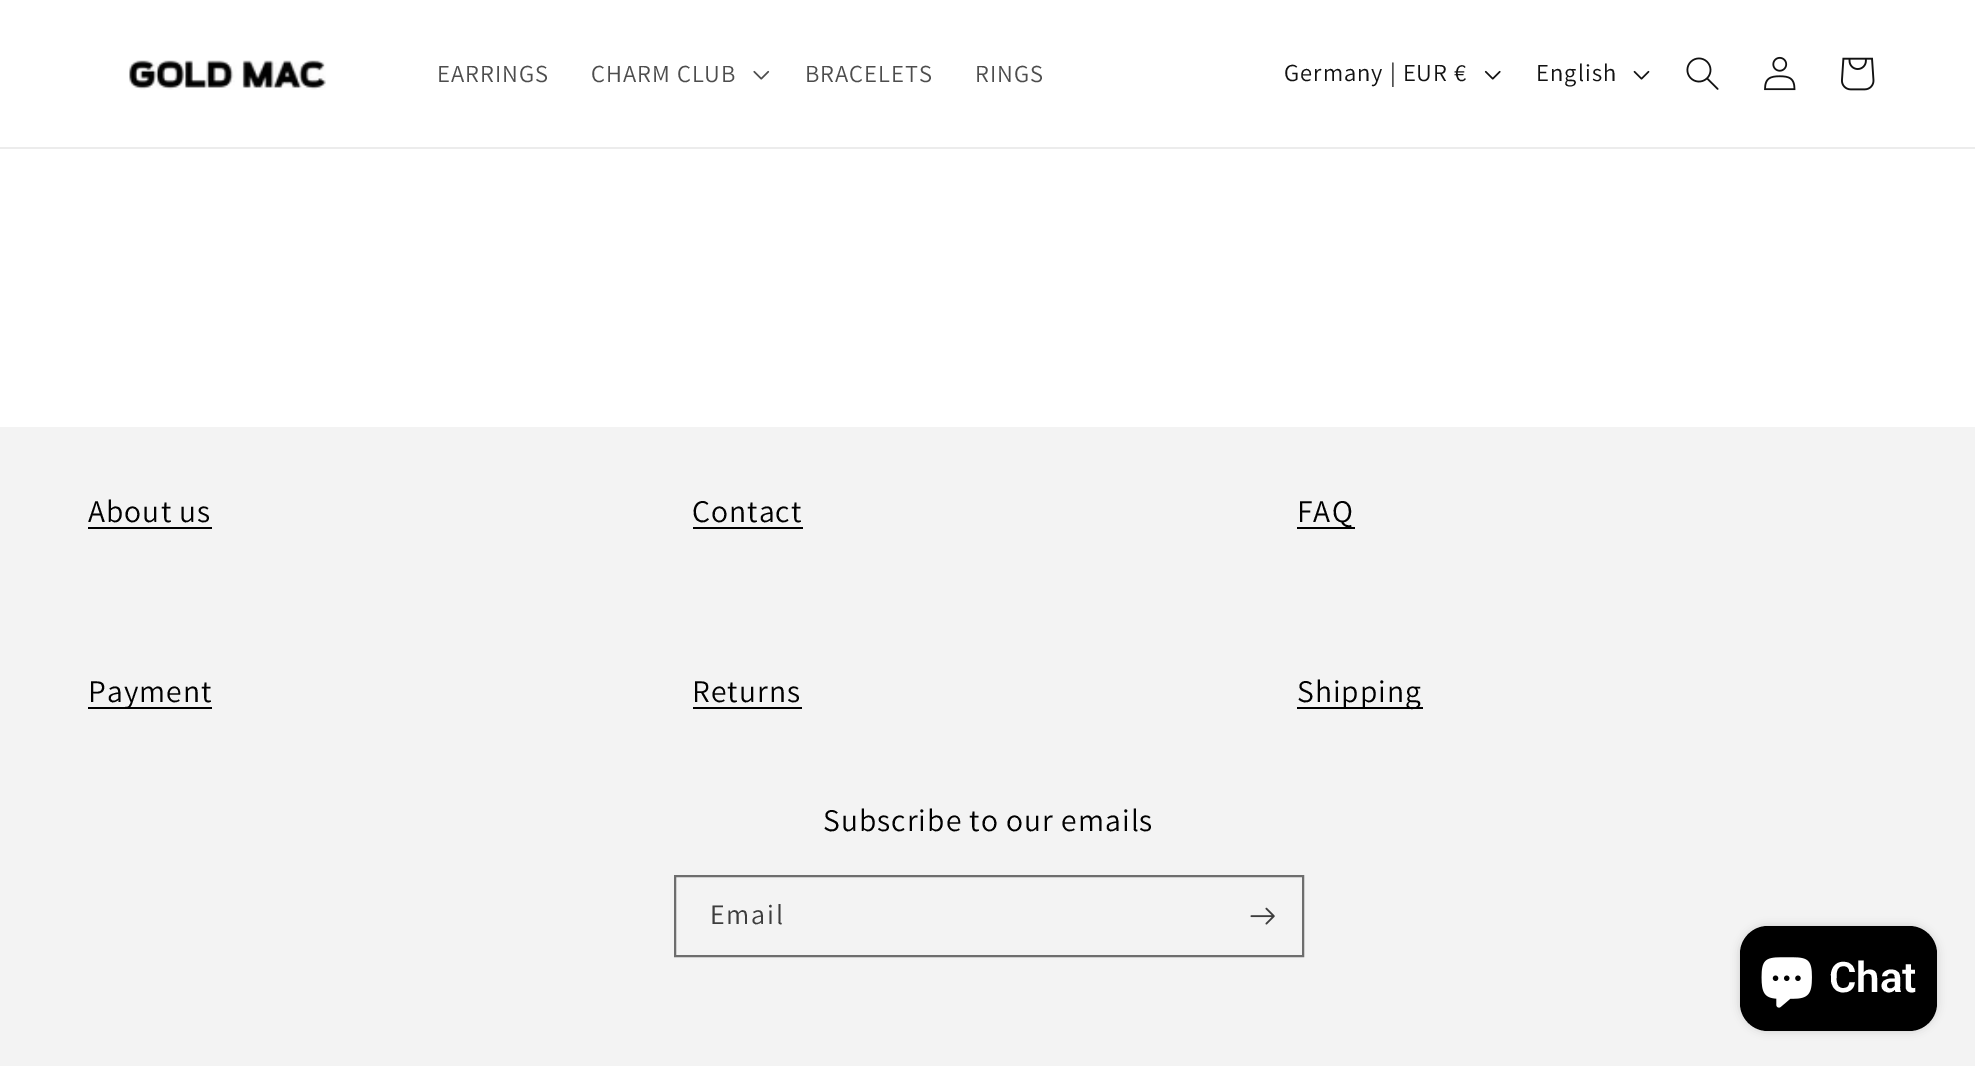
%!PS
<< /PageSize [1975 1066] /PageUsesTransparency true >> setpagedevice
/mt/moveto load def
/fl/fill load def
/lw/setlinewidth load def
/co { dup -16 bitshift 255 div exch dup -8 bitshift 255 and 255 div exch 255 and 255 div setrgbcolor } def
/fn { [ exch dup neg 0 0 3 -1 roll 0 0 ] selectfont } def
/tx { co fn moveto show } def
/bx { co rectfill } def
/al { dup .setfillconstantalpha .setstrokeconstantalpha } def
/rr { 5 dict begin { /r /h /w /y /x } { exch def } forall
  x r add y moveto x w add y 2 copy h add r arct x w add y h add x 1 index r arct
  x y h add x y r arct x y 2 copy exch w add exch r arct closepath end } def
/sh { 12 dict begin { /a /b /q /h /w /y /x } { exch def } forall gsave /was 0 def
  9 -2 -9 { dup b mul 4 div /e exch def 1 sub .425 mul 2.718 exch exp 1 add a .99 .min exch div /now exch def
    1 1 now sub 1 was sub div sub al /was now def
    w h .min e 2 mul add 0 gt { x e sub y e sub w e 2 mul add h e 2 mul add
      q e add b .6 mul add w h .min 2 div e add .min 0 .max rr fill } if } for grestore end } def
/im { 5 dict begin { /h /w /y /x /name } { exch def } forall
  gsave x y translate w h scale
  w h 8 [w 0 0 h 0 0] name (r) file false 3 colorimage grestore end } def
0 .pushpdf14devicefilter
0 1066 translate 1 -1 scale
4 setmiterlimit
0 0 1975 1066 16#FFFFFF bx
0 147 1975 2 16#ECECEC bx
(media/1.raw) 129 60 197 30 im
(media/2.raw) 753 70 17 10 im
(media/3.raw) 1484 70 17 10 im
(media/4.raw) 1633 70 17 10 im
(media/5.raw) 1686 57 33 33 im
(media/6.raw) 1764 56 32 35 im
(media/7.raw) 1841 57 34 34 im
0 427 1975 639 16#F3F3F3 bx
88 527 124 2 16#000000 bx
693 527 110 2 16#000000 bx
1297 527 58 2 16#000000 bx
88 707 124 2 16#000000 bx
693 707 109 2 16#000000 bx
1297 707 126 2 16#000000 bx
16#6D6D6D co
2 lw
675 876 628 80 rectstroke
(media/8.raw) 1250 907 25 18 im
16#000000 co
1740 926 197 105 28 4.5 .15 sh
1740 926 197 105 28 rr fl
(media/9.raw) 1761 957 51 51 im
/Assistant-Regular 24.5 fn
16#4D4D4D co
437 82 mt 1.05 0 (EARRINGS) ashow
591 82 mt 1.05 0 (CHARM CLUB) ashow
805 82 mt 1.05 0 (BRACELETS) ashow
975 82 mt 1.05 0 (RINGS) ashow
16#121212 co
1284 81 mt 1.05 0 (Germany | EUR €) ashow
1536 81 mt 1.05 0 (English) ashow
/Assistant-Regular 31.5 fn
16#000000 co
88 522 mt 1.05 0 (About us) ashow
692 522 mt 1.05 0 (Contact) ashow
1297 522 mt 1.05 0 (FAQ) ashow
88 702 mt 1.05 0 (Payment) ashow
692 702 mt 1.05 0 (Returns) ashow
1297 702 mt 1.05 0 (Shipping) ashow
823 831 mt 1.05 0 (Subscribe to our emails) ashow
/Assistant-Regular 28 fn
16#3D3D3D co
710 924 mt 1.75 0 (Email) ashow
(Chat) 1829 992 /Roboto-SemiBold 42 16#FFFFFF tx
.poppdf14devicefilter showpage
